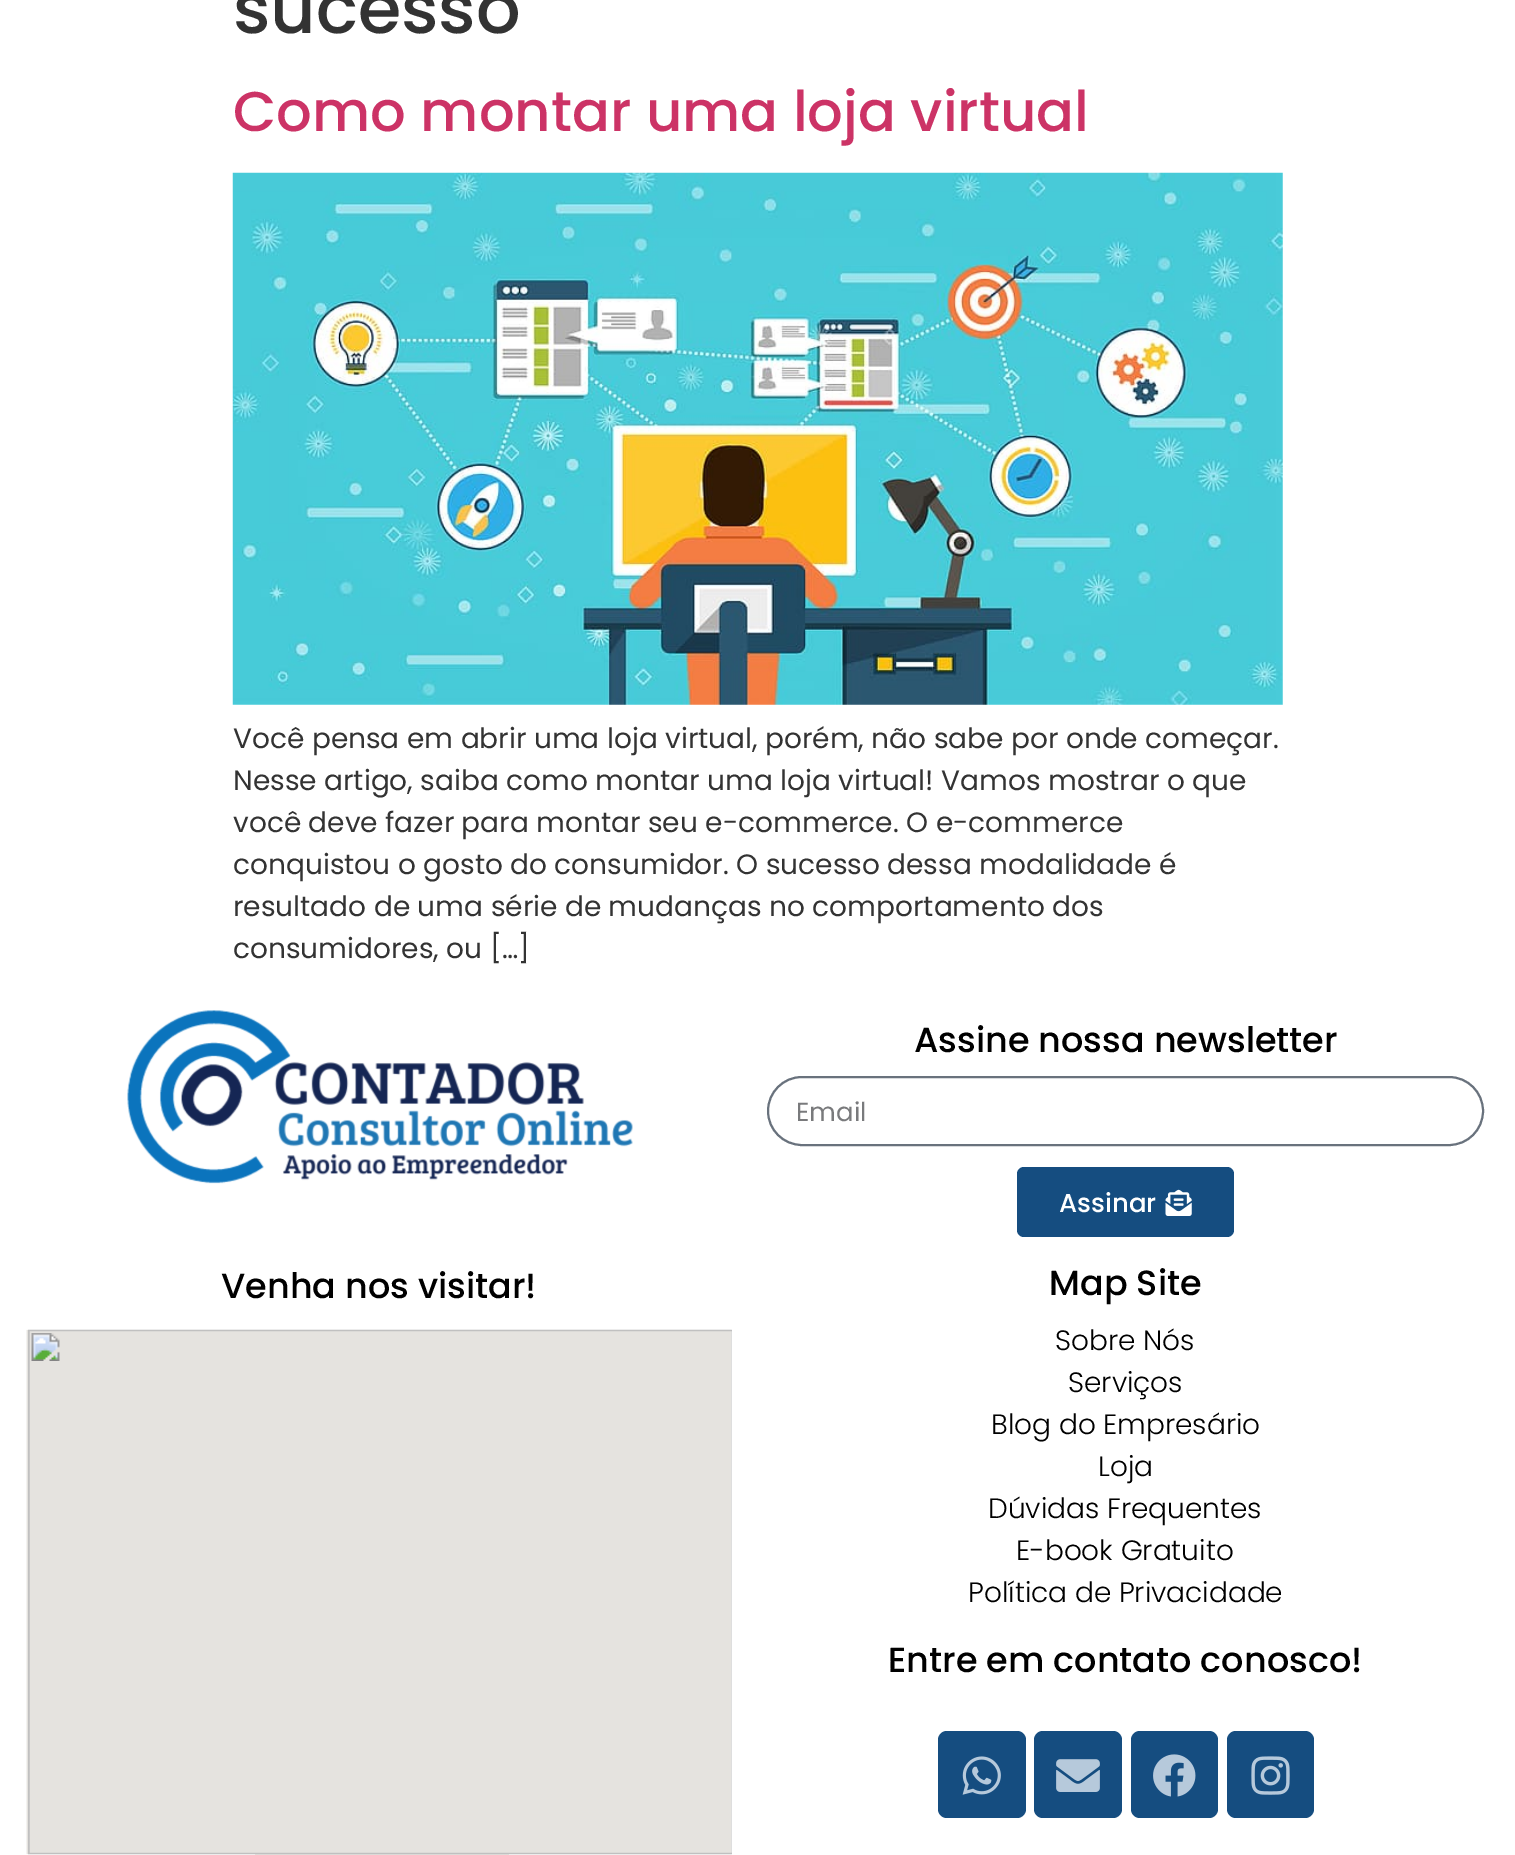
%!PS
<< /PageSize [1515 1855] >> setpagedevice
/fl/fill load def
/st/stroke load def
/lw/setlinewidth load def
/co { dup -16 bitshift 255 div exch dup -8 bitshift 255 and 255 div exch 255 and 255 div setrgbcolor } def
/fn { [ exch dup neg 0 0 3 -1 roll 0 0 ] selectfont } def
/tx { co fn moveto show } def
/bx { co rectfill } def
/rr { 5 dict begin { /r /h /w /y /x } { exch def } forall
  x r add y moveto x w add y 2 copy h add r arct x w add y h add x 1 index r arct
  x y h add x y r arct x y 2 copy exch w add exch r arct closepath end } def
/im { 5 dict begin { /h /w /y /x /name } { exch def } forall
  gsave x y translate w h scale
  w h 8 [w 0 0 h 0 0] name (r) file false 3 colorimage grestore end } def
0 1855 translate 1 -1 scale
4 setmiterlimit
0 0 1515 1855 16#FFFFFF bx
(media/1.raw) 232 172 1051 533 im
(media/2.raw) 127 1010 506 174 im
(media/3.raw) 26 1329 706 526 im
16#69727D co
2 lw
768 1077 715 68 34 rr st
16#154D80 co
1017 1167 217 70 7 rr fl
(media/4.raw) 1165 1189 27 27 im
938 1731 88 87 9 rr fl
(media/5.raw) 962 1756 39 39 im
1034 1731 88 87 9 rr fl
(media/6.raw) 1056 1759 44 33 im
1131 1731 87 87 9 rr fl
(media/7.raw) 1153 1754 43 43 im
1227 1731 87 87 9 rr fl
(media/8.raw) 1251 1756 39 39 im
(sucesso) 233 33 /Poppins-Medium 70 16#333333 tx
(Como montar uma loja virtual) 233 131 /Poppins-Medium 56 16#CC3366 tx
(Você pensa em abrir uma loja virtual, porém, não sabe por onde começar.) 233 748 /Poppins-Regular 28 16#333333 tx
(Nesse artigo, saiba como montar uma loja virtual! Vamos mostrar o que) 233 790 /Poppins-Regular 28 16#333333 tx
(você deve fazer para montar seu e-commerce. O e-commerce) 233 832 /Poppins-Regular 28 16#333333 tx
(conquistou o gosto do consumidor. O sucesso dessa modalidade é) 233 874 /Poppins-Regular 28 16#333333 tx
(resultado de uma série de mudanças no comportamento dos) 233 916 /Poppins-Regular 28 16#333333 tx
(consumidores, ou […]) 233 958 /Poppins-Regular 28 16#333333 tx
(Venha nos visitar!) 221 1298 /Poppins-Medium 35 16#000000 tx
(Assine nossa newsletter) 914 1052 /Poppins-Medium 35 16#000000 tx
(Email) 796 1121 /Poppins-Regular 26 16#797A7C tx
(Assinar) 1059 1212 /Poppins-Medium 26 16#FFFFFF tx
(Map Site) 1049 1295 /Poppins-Medium 35 16#000000 tx
(Sobre Nós) 1055 1350 /Poppins-Light 28 16#000000 tx
(Serviços) 1068 1392 /Poppins-Light 28 16#000000 tx
(Blog do Empresário) 991 1434 /Poppins-Light 28 16#000000 tx
(Loja) 1098 1476 /Poppins-Light 28 16#000000 tx
(Dúvidas Frequentes) 988 1518 /Poppins-Light 28 16#000000 tx
(E-book Gratuito) 1016 1560 /Poppins-Light 28 16#000000 tx
(Política de Privacidade) 968 1602 /Poppins-Light 28 16#000000 tx
(Entre em contato conosco!) 888 1672 /Poppins-Medium 35 16#000000 tx
showpage
